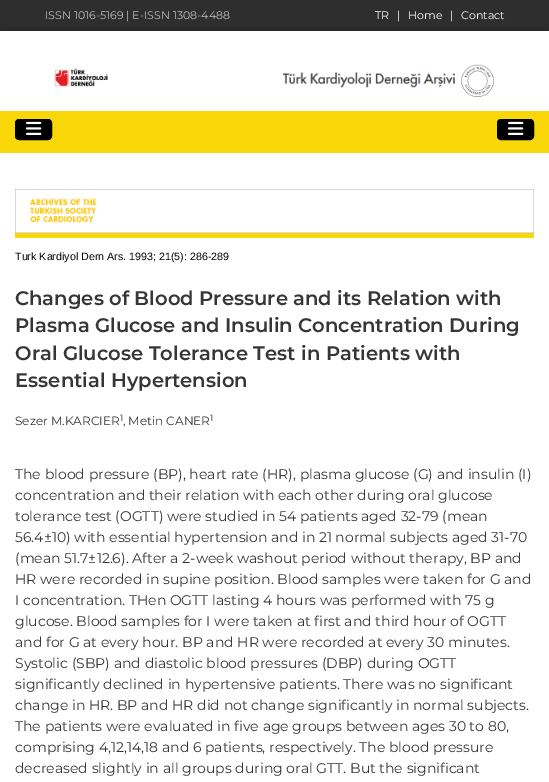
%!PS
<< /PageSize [549 782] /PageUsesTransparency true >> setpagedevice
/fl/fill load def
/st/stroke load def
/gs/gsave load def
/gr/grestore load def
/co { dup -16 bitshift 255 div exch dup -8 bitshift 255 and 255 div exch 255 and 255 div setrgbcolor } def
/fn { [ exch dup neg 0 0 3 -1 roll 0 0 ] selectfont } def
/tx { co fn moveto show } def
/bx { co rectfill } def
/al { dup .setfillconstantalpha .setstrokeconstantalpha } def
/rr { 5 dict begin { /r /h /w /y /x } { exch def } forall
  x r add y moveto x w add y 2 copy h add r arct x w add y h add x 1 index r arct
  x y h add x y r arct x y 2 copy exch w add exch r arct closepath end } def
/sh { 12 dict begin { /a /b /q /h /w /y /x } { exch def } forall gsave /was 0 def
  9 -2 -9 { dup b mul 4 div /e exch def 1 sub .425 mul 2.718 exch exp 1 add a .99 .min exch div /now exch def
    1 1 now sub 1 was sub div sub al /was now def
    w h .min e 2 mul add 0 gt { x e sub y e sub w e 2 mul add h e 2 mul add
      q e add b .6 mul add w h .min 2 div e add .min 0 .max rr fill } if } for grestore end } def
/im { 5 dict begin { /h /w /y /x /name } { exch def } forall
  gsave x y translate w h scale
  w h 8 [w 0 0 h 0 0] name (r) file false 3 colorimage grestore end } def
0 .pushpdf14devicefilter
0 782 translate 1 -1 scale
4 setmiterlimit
0 0 549 782 16#2E2E2E bx
16#000000 co
4 35 541 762 0 5 .71 sh
0 31 549 751 16#FFFFFF bx
(media/1.raw) 54 64 440 33 im
0 111 549 42 16#F8D607 bx
16#000000 co
15.5 119.5 36 20 3.5 rr gs fl gr
st
(media/2.raw) 26 121 16 14 im
497.5 119.5 36 20 3.5 rr gs fl gr
st
(media/2.raw) 508 121 16 14 im
15 233 519 5 16#F8D607 bx
(media/3.raw) 15 189 519 44 im
(ISSN 1016-5169 | E-ISSN 1308-4488) 45 19 /Montserrat-Regular 11 16#BFBFBF tx
(TR) 375 19 /Montserrat-Regular 11 16#FFFFFF tx
(|) 397 19 /Montserrat-Regular 11 16#FFFFFF tx
(Home) 408 19 /Montserrat-Regular 11 16#FFFFFF tx
(|) 450 19 /Montserrat-Regular 11 16#FFFFFF tx
(Contact) 461 19 /Montserrat-Regular 11 16#FFFFFF tx
(Turk Kardiyol Dern Ars. 1993; 21\(5\): 286-289) 15 260 /LiberationSans-Regular 10.7 16#000000 tx
(Changes of Blood Pressure and its Relation with) 15 305 /Montserrat-SemiBold 19.6 16#363636 tx
(Plasma Glucose and Insulin Concentration During) 15 332 /Montserrat-SemiBold 19.6 16#363636 tx
(Oral Glucose Tolerance Test in Patients with) 15 360 /Montserrat-SemiBold 19.6 16#363636 tx
(Essential Hypertension) 15 387 /Montserrat-SemiBold 19.6 16#363636 tx
(1) 210 421 /Montserrat-Regular 9 16#363636 tx
(Sezer M.KARCIER , Metin CANER) 15 425 /Montserrat-Regular 12 16#363636 tx
(1) 120 421 /Montserrat-Regular 9 16#363636 tx
(The blood pressure \(BP\), heart rate \(HR\), plasma glucose \(G\) and insulin \(I\)) 15 479 /Montserrat-Regular 14 16#363636 tx
(concentration and their relation with each other during oral glucose) 15 500 /Montserrat-Regular 14 16#363636 tx
(tolerance test \(OGTT\) were studied in 54 patients aged 32-79 \(mean) 15 521 /Montserrat-Regular 14 16#363636 tx
(56.4±10\) with essential hypertension and in 21 normal subjects aged 31-70) 15 542 /Montserrat-Regular 14 16#363636 tx
(\(mean 51.7±12.6\). After a 2-week washout period without therapy, BP and) 15 563 /Montserrat-Regular 14 16#363636 tx
(HR were recorded in supine position. Blood samples were taken for G and) 15 584 /Montserrat-Regular 14 16#363636 tx
(I concentration. THen OGTT lasting 4 hours was performed with 75 g) 15 605 /Montserrat-Regular 14 16#363636 tx
(glucose. Blood samples for I were taken at first and third hour of OGTT) 15 626 /Montserrat-Regular 14 16#363636 tx
(and for G at every hour. BP and HR were recorded at every 30 minutes.) 15 647 /Montserrat-Regular 14 16#363636 tx
(Systolic \(SBP\) and diastolic blood pressures \(DBP\) during OGTT) 15 668 /Montserrat-Regular 14 16#363636 tx
(significantly declined in hypertensive patients. There was no significant) 15 689 /Montserrat-Regular 14 16#363636 tx
(change in HR. BP and HR did not change significantly in normal subjects.) 15 710 /Montserrat-Regular 14 16#363636 tx
(The patients were evaluated in five age groups between ages 30 to 80,) 15 731 /Montserrat-Regular 14 16#363636 tx
(comprising 4,12,14,18 and 6 patients, respectively. The blood pressure) 15 752 /Montserrat-Regular 14 16#363636 tx
(decreased slightly in all groups during oral GTT. But the significant) 15 773 /Montserrat-Regular 14 16#363636 tx
.poppdf14devicefilter showpage
